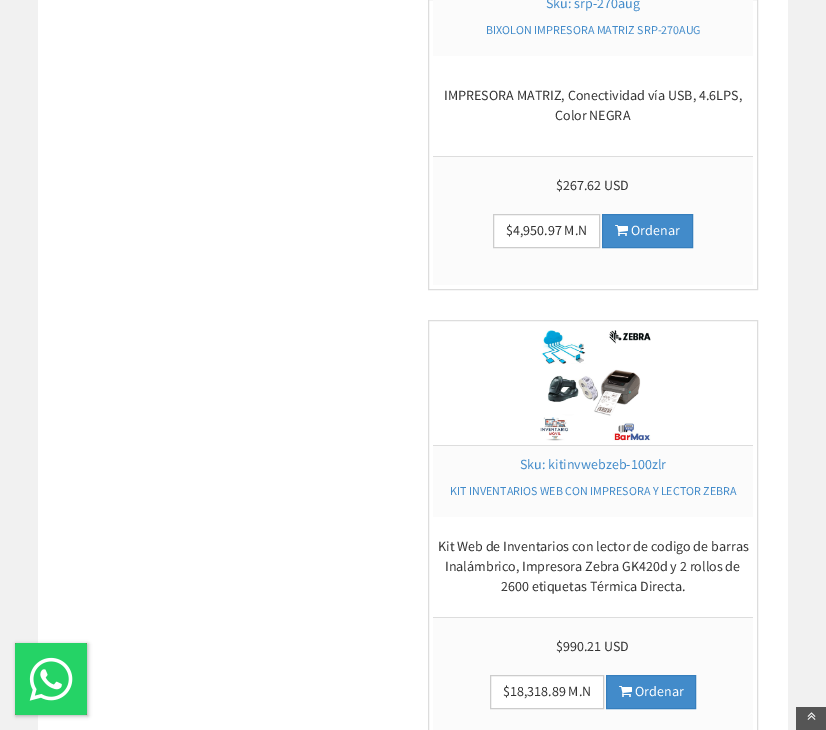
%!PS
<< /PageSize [826 730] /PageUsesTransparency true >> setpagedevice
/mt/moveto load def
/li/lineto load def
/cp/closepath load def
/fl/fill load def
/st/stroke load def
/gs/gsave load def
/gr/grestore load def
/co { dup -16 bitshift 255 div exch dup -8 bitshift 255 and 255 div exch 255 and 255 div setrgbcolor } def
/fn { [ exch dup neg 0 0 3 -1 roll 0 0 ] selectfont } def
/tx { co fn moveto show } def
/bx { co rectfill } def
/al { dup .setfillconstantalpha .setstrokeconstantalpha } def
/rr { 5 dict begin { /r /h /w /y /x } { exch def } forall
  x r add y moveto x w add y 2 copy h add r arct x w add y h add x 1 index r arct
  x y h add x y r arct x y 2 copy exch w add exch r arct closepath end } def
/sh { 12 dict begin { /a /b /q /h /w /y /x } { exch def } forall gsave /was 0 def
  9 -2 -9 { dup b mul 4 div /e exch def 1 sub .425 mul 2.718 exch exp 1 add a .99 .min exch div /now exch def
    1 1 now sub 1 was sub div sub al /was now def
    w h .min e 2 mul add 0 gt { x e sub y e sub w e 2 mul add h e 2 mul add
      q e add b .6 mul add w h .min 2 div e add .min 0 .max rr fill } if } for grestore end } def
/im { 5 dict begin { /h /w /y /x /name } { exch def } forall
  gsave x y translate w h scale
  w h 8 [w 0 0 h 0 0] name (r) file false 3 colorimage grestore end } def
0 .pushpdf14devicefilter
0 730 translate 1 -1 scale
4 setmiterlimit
0 0 826 730 16#F1F1F1 bx
38 0 750 730 16#FFFFFF bx
16#3C3C3C co
16 644 72 72 0 2 .4 sh
15 643 72 72 16#DC143C bx
(media/1.raw) 15 643 72 72 im
16#DDDDDD co
428.5 -.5 329 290 rectstroke
433 0 320 56 16#FBFBFB bx
433 157 320 128 16#FBFBFB bx
433 156 320 1 16#DDDDDD bx
16#FFFFFF co
493.5 214.5 mt 599.5 214.5 li 599.5 247.5 li 493.5 247.5 li cp gs fl gr
16#CCCCCC co
st
16#428BCA co
602.5 214.5 mt 692.5 214.5 li 692.5 247.5 li 602.5 247.5 li cp gs fl gr
16#357EBD co
st
(media/2.raw) 615 225 13 11 im
16#DDDDDD co
428.5 320.5 329 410 rectstroke
(media/3.raw) 540 330 111 111 im
433 446 320 71 16#FBFBFB bx
433 445 320 1 16#DDDDDD bx
433 618 320 112 16#FBFBFB bx
433 617 320 1 16#DDDDDD bx
16#FFFFFF co
490.5 675.5 mt 603.5 675.5 li 603.5 708.5 li 490.5 708.5 li cp gs fl gr
16#CCCCCC co
st
16#428BCA co
606.5 675.5 mt 695.5 675.5 li 695.5 708.5 li 606.5 708.5 li cp gs fl gr
16#357EBD co
st
(media/2.raw) 619 686 13 11 im
796 707 30 23 16#555555 bx
(media/4.raw) 807 712 9 8 im
(Sku: srp-270aug) 546 8 /SourceSansPro-Regular 14 16#428BCA tx
(BIXOLON IMPRESORA MATRIZ SRP-270AUG) 486 34 /SourceSansPro-Regular 12 16#428BCA tx
(IMPRESORA MATRIZ, Conectividad vía USB, 4.6LPS,) 444 100 /SourceSansPro-Regular 14 16#333333 tx
(Color NEGRA) 555 120 /SourceSansPro-Regular 14 16#333333 tx
($267.62 USD) 556 190 /SourceSansPro-Regular 14 16#333333 tx
($4,950.97 M.N) 506 235 /SourceSansPro-Regular 14 16#333333 tx
(Ordenar) 631 235 /SourceSansPro-Regular 14 16#FFFFFF tx
(Sku: kitinvwebzeb-100zlr) 520 469 /SourceSansPro-Regular 14 16#428BCA tx
(KIT INVENTARIOS WEB CON IMPRESORA Y LECTOR ZEBRA) 450 495 /SourceSansPro-Regular 12 16#428BCA tx
(Kit Web de Inventarios con lector de codigo de barras) 438 551 /SourceSansPro-Regular 14 16#333333 tx
(Inalámbrico, Impresora Zebra GK420d y 2 rollos de) 445 571 /SourceSansPro-Regular 14 16#333333 tx
(2600 etiquetas Térmica Directa.) 501 591 /SourceSansPro-Regular 14 16#333333 tx
($990.21 USD) 556 651 /SourceSansPro-Regular 14 16#333333 tx
($18,318.89 M.N) 503 696 /SourceSansPro-Regular 14 16#333333 tx
(Ordenar) 635 696 /SourceSansPro-Regular 14 16#FFFFFF tx
.poppdf14devicefilter showpage
